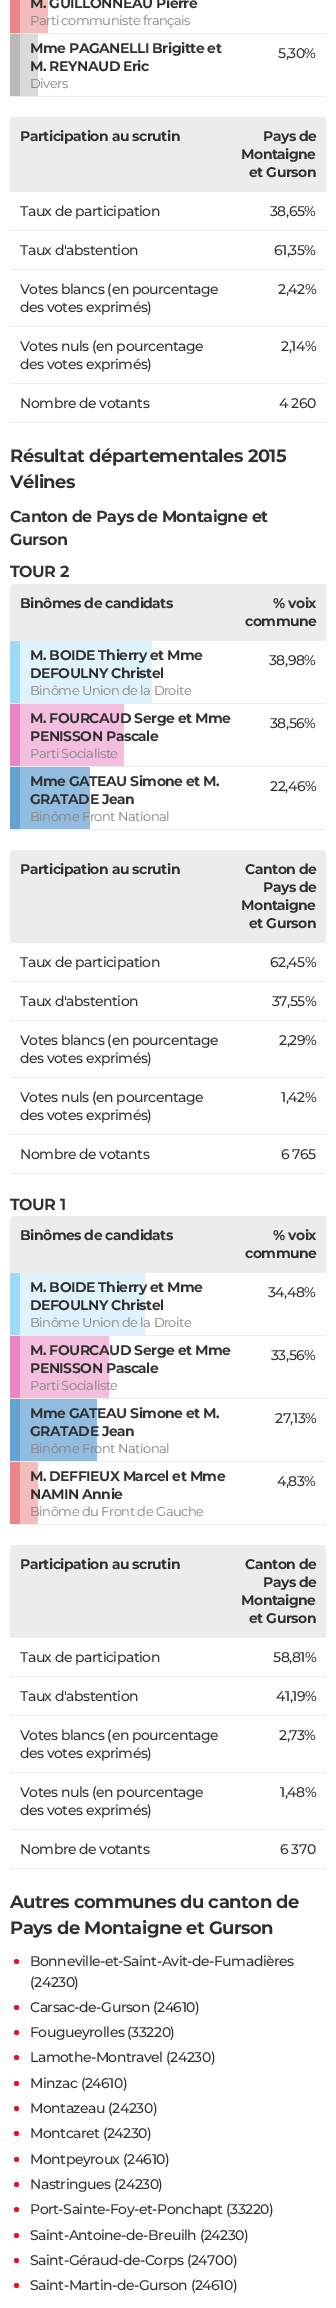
%!PS
<< /PageSize [336 2308] >> setpagedevice
/mt/moveto load def
/li/lineto load def
/ct/curveto load def
/cp/closepath load def
/fl/fill load def
/co { dup -16 bitshift 255 div exch dup -8 bitshift 255 and 255 div exch 255 and 255 div setrgbcolor } def
/fn { [ exch dup neg 0 0 3 -1 roll 0 0 ] selectfont } def
/bx { co rectfill } def
/ci { newpath 0 360 arc closepath } def
0 2308 translate 1 -1 scale
4 setmiterlimit
0 0 336 2308 16#FFFFFF bx
10 33 316 1 16#ECECEC bx
20 0 28 33 16#F4BDBD bx
10 0 10 33 16#EB8585 bx
10 96 316 1 16#ECECEC bx
20 34 18 62 16#DADADA bx
10 34 10 62 16#B9B9B9 bx
10 191 316 1 16#ECECEC bx
15 117 mt 231 117 li 231 191 li 10 191 li 10 122 li 10 119 12 117 15 117 ct cp fl
231 117 mt 321 117 li 324 117 326 119 326 122 ct 326 191 li 231 191 li cp fl
10 230 316 1 16#ECECEC bx
10 269 316 1 16#ECECEC bx
10 326 316 1 16#ECECEC bx
10 383 316 1 16#ECECEC bx
10 422 316 1 16#ECECEC bx
10 640 316 1 16#ECECEC bx
15 584 mt 200 584 li 200 640 li 10 640 li 10 589 li 10 586 12 584 15 584 ct cp fl
200 584 126 56 16#ECECEC bx
10 703 316 1 16#ECECEC bx
20 641 132 62 16#DFF3FD bx
10 641 10 62 16#9CDAF9 bx
10 766 316 1 16#ECECEC bx
20 704 104 62 16#F4BEDE bx
10 704 10 62 16#EB86C2 bx
10 829 316 1 16#ECECEC bx
20 767 70 62 16#92BDE1 bx
10 767 10 62 16#66A3D5 bx
10 942 316 1 16#ECECEC bx
15 850 mt 231 850 li 231 942 li 10 942 li 10 855 li 10 852 12 850 15 850 ct cp fl
231 850 mt 321 850 li 324 850 326 852 326 855 ct 326 942 li 231 942 li cp fl
10 981 316 1 16#ECECEC bx
10 1020 316 1 16#ECECEC bx
10 1077 316 1 16#ECECEC bx
10 1134 316 1 16#ECECEC bx
10 1173 316 1 16#ECECEC bx
10 1272 316 1 16#ECECEC bx
15 1216 mt 200 1216 li 200 1272 li 10 1272 li 10 1221 li 10 1218 12 1216 15 1216 ct cp fl
200 1216 126 56 16#ECECEC bx
10 1335 316 1 16#ECECEC bx
20 1273 125 62 16#DFF3FD bx
10 1273 10 62 16#9CDAF9 bx
10 1398 316 1 16#ECECEC bx
20 1336 89 62 16#F4BEDE bx
10 1336 10 62 16#EB86C2 bx
10 1461 316 1 16#ECECEC bx
20 1399 77 62 16#92BDE1 bx
10 1399 10 62 16#66A3D5 bx
10 1524 316 1 16#ECECEC bx
20 1462 18 62 16#F4BDBD bx
10 1462 10 62 16#EB8585 bx
10 1637 316 1 16#ECECEC bx
15 1545 mt 231 1545 li 231 1637 li 10 1637 li 10 1550 li 10 1547 12 1545 15 1545 ct cp fl
231 1545 mt 321 1545 li 324 1545 326 1547 326 1550 ct 326 1637 li 231 1637 li cp fl
10 1676 316 1 16#ECECEC bx
10 1715 316 1 16#ECECEC bx
10 1772 316 1 16#ECECEC bx
10 1829 316 1 16#ECECEC bx
10 1868 316 1 16#ECECEC bx
16#E41129 co
16.5 1961.5 2.5 ci fl
16.5 2007.5 2.5 ci fl
16.5 2032.5 2.5 ci fl
16.5 2057.5 2.5 ci fl
16.5 2083.5 2.5 ci fl
16.5 2108.5 2.5 ci fl
16.5 2133.5 2.5 ci fl
16.5 2159.5 2.5 ci fl
16.5 2184.5 2.5 ci fl
16.5 2209.5 2.5 ci fl
16.5 2235.5 2.5 ci fl
16.5 2260.5 2.5 ci fl
16.5 2285.5 2.5 ci fl
/Montserrat-Bold 14 fn
16#303030 co
30 8 mt -.5 0 (M. GUILLONNEAU Pierre) ashow
/Montserrat-Regular 13 fn
16#858585 co
30 25 mt -.5 0 (Parti communiste français) ashow
/Montserrat-Bold 14 fn
16#303030 co
30 53 mt -.5 0 (Mme PAGANELLI Brigitte et) ashow
30 71 mt -.5 0 (M. REYNAUD Eric) ashow
/Montserrat-Regular 13 fn
16#858585 co
30 88 mt -.5 0 (Divers) ashow
/Montserrat-Medium 14 fn
16#303030 co
278 58 mt -.5 0 (5,30%) ashow
/Montserrat-Bold 14 fn
20 141 mt -.5 0 (Participation au scrutin) ashow
263 141 mt -.5 0 (Pays de) ashow
241 159 mt -.5 0 (Montaigne) ashow
249 177 mt -.5 0 (et Gurson) ashow
/Montserrat-Medium 14 fn
20 216 mt -.5 0 (Taux de participation) ashow
270 216 mt -.5 0 (38,65%) ashow
20 255 mt -.5 0 (Taux d'abstention) ashow
274 255 mt -.5 0 (61,35%) ashow
20 294 mt -.5 0 (Votes blancs \(en pourcentage) ashow
20 312 mt -.5 0 (des votes exprimés\)) ashow
278 294 mt -.5 0 (2,42%) ashow
20 351 mt -.5 0 (Votes nuls \(en pourcentage) ashow
20 369 mt -.5 0 (des votes exprimés\)) ashow
281 351 mt -.5 0 (2,14%) ashow
20 408 mt -.5 0 (Nombre de votants) ashow
279 408 mt -.5 0 (4 260) ashow
/Montserrat-Bold 18 fn
10 462 mt -.5 0 (Résultat départementales 2015) ashow
10 488 mt -.5 0 (Vélines) ashow
/Montserrat-Bold 16 fn
10 522 mt -.5 0 (Canton de Pays de Montaigne et) ashow
10 545 mt -.5 0 (Gurson) ashow
10 577 mt -.5 0 (TOUR 2) ashow
/Montserrat-Bold 14 fn
20 608 mt -.5 0 (Binômes de candidats) ashow
273 608 mt -.5 0 (% voix) ashow
245 626 mt -.5 0 (commune) ashow
30 660 mt -.5 0 (M. BOIDE Thierry et Mme) ashow
30 678 mt -.5 0 (DEFOULNY Christel) ashow
/Montserrat-Regular 13 fn
16#858585 co
30 695 mt -.5 0 (Binôme Union de la Droite) ashow
/Montserrat-Medium 14 fn
16#303030 co
269 665 mt -.5 0 (38,98%) ashow
/Montserrat-Bold 14 fn
30 723 mt -.5 0 (M. FOURCAUD Serge et Mme) ashow
30 741 mt -.5 0 (PENISSON Pascale) ashow
/Montserrat-Regular 13 fn
16#858585 co
30 758 mt -.5 0 (Parti Socialiste) ashow
/Montserrat-Medium 14 fn
16#303030 co
270 728 mt -.5 0 (38,56%) ashow
/Montserrat-Bold 14 fn
30 786 mt -.5 0 (Mme GATEAU Simone et M.) ashow
30 804 mt -.5 0 (GRATADE Jean) ashow
/Montserrat-Regular 13 fn
16#858585 co
30 821 mt -.5 0 (Binôme Front National) ashow
/Montserrat-Medium 14 fn
16#303030 co
270 791 mt -.5 0 (22,46%) ashow
/Montserrat-Bold 14 fn
20 874 mt -.5 0 (Participation au scrutin) ashow
245 874 mt -.5 0 (Canton de) ashow
263 892 mt -.5 0 (Pays de) ashow
241 910 mt -.5 0 (Montaigne) ashow
249 928 mt -.5 0 (et Gurson) ashow
/Montserrat-Medium 14 fn
20 967 mt -.5 0 (Taux de participation) ashow
270 967 mt -.5 0 (62,45%) ashow
20 1006 mt -.5 0 (Taux d'abstention) ashow
272 1006 mt -.5 0 (37,55%) ashow
20 1045 mt -.5 0 (Votes blancs \(en pourcentage) ashow
20 1063 mt -.5 0 (des votes exprimés\)) ashow
279 1045 mt -.5 0 (2,29%) ashow
20 1102 mt -.5 0 (Votes nuls \(en pourcentage) ashow
20 1120 mt -.5 0 (des votes exprimés\)) ashow
281 1102 mt -.5 0 (1,42%) ashow
20 1159 mt -.5 0 (Nombre de votants) ashow
281 1159 mt -.5 0 (6 765) ashow
/Montserrat-Bold 16 fn
10 1210 mt -.5 0 (TOUR 1) ashow
/Montserrat-Bold 14 fn
20 1240 mt -.5 0 (Binômes de candidats) ashow
273 1240 mt -.5 0 (% voix) ashow
245 1258 mt -.5 0 (commune) ashow
30 1292 mt -.5 0 (M. BOIDE Thierry et Mme) ashow
30 1310 mt -.5 0 (DEFOULNY Christel) ashow
/Montserrat-Regular 13 fn
16#858585 co
30 1327 mt -.5 0 (Binôme Union de la Droite) ashow
/Montserrat-Medium 14 fn
16#303030 co
268 1297 mt -.5 0 (34,48%) ashow
/Montserrat-Bold 14 fn
30 1355 mt -.5 0 (M. FOURCAUD Serge et Mme) ashow
30 1373 mt -.5 0 (PENISSON Pascale) ashow
/Montserrat-Regular 13 fn
16#858585 co
30 1390 mt -.5 0 (Parti Socialiste) ashow
/Montserrat-Medium 14 fn
16#303030 co
271 1360 mt -.5 0 (33,56%) ashow
/Montserrat-Bold 14 fn
30 1418 mt -.5 0 (Mme GATEAU Simone et M.) ashow
30 1436 mt -.5 0 (GRATADE Jean) ashow
/Montserrat-Regular 13 fn
16#858585 co
30 1453 mt -.5 0 (Binôme Front National) ashow
/Montserrat-Medium 14 fn
16#303030 co
275 1423 mt -.5 0 (27,13%) ashow
/Montserrat-Bold 14 fn
30 1481 mt -.5 0 (M. DEFFIEUX Marcel et Mme) ashow
30 1499 mt -.5 0 (NAMIN Annie) ashow
/Montserrat-Regular 13 fn
16#858585 co
30 1516 mt -.5 0 (Binôme du Front de Gauche) ashow
/Montserrat-Medium 14 fn
16#303030 co
277 1486 mt -.5 0 (4,83%) ashow
/Montserrat-Bold 14 fn
20 1569 mt -.5 0 (Participation au scrutin) ashow
245 1569 mt -.5 0 (Canton de) ashow
263 1587 mt -.5 0 (Pays de) ashow
241 1605 mt -.5 0 (Montaigne) ashow
249 1623 mt -.5 0 (et Gurson) ashow
/Montserrat-Medium 14 fn
20 1662 mt -.5 0 (Taux de participation) ashow
273 1662 mt -.5 0 (58,81%) ashow
20 1701 mt -.5 0 (Taux d'abstention) ashow
276 1701 mt -.5 0 (41,19%) ashow
20 1740 mt -.5 0 (Votes blancs \(en pourcentage) ashow
20 1758 mt -.5 0 (des votes exprimés\)) ashow
279 1740 mt -.5 0 (2,73%) ashow
20 1797 mt -.5 0 (Votes nuls \(en pourcentage) ashow
20 1815 mt -.5 0 (des votes exprimés\)) ashow
280 1797 mt -.5 0 (1,48%) ashow
20 1854 mt -.5 0 (Nombre de votants) ashow
280 1854 mt -.5 0 (6 370) ashow
/Montserrat-Bold 18 fn
10 1908 mt -.5 0 (Autres communes du canton de) ashow
10 1934 mt -.5 0 (Pays de Montaigne et Gurson) ashow
/Montserrat-Medium 14 fn
30 1966 mt -.5 0 (Bonneville-et-Saint-Avit-de-Fumadières) ashow
30 1987 mt -.5 0 (\(24230\)) ashow
30 2012 mt -.5 0 (Carsac-de-Gurson \(24610\)) ashow
30 2037 mt -.5 0 (Fougueyrolles \(33220\)) ashow
30 2062 mt -.5 0 (Lamothe-Montravel \(24230\)) ashow
30 2088 mt -.5 0 (Minzac \(24610\)) ashow
30 2113 mt -.5 0 (Montazeau \(24230\)) ashow
30 2138 mt -.5 0 (Montcaret \(24230\)) ashow
30 2164 mt -.5 0 (Montpeyroux \(24610\)) ashow
30 2189 mt -.5 0 (Nastringues \(24230\)) ashow
30 2214 mt -.5 0 (Port-Sainte-Foy-et-Ponchapt \(33220\)) ashow
30 2240 mt -.5 0 (Saint-Antoine-de-Breuilh \(24230\)) ashow
30 2265 mt -.5 0 (Saint-Géraud-de-Corps \(24700\)) ashow
30 2290 mt -.5 0 (Saint-Martin-de-Gurson \(24610\)) ashow
showpage
